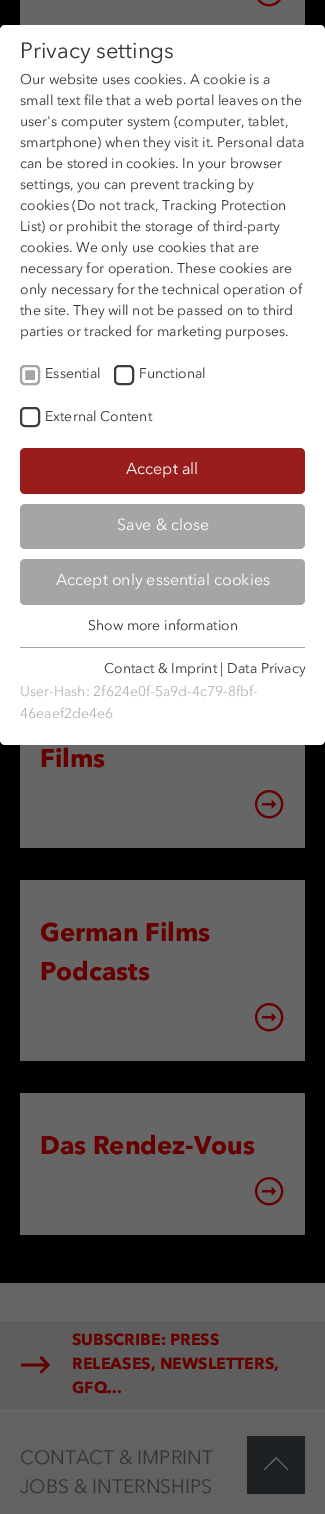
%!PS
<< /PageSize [325 1514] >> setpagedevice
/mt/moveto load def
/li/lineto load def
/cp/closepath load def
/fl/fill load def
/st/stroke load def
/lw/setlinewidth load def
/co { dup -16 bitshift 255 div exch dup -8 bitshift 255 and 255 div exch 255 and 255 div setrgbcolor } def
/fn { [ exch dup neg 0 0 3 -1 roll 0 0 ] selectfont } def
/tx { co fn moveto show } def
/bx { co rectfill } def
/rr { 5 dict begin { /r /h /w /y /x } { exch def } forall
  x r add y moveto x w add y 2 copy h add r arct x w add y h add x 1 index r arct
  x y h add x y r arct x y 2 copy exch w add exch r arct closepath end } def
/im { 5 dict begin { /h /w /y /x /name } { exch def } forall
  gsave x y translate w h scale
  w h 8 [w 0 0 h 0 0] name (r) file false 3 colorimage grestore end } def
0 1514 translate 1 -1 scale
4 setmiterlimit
0 0 325 1514 16#5E5E5E bx
0 0 325 1283 16#000000 bx
16#FFFFFF co
0 25 325 720 5 rr fl
16#A5A5A5 co
20 365 20 20 5 rr fl
16#FFFFFF co
3 lw
23.5 368.5 13 13 1.5 rr st
16#A5A5A5 co
2 lw
21 366 18 18 4 rr st
16#3C3C3C co
115 366 18 18 4 rr st
21 408 18 18 4 rr st
16#9A1D1D co
20 448 285 46 5 rr fl
16#A5A5A5 co
20 504 285 45 5 rr fl
20 559 285 46 5 rr fl
20 647 285 1 16#A5A5A5 bx
20 0 285 25 16#666666 bx
(media/1.raw) 257 0 24 7 im
20 745 285 103 16#666666 bx
(media/2.raw) 254 790 30 29 im
20 880 285 181 16#666666 bx
(media/2.raw) 254 1003 30 29 im
20 1093 285 142 16#666666 bx
(media/2.raw) 254 1177 30 29 im
0 1283 325 38 16#666666 bx
16#660000 co
41.5 1356 mt 39.5 1358 li 45 1363.5 li 21 1363.5 li 21 1366.5 li 45 1366.5 li 39.5 1372 li 41.5 1373.5 li 50 1365 li cp fl
0 1413 325 101 16#626262 bx
0 1409 325 4 16#666666 bx
247 1436 58 58 16#1D2023 bx
16#666666 co
276 1457 mt 288.5 1469.5 li 287.5 1470 li 275.5 1458 li cp fl
276 1457 mt 277 1458 li 264.5 1470 li 264 1469.5 li cp fl
(Privacy settings) 20 58 /AvenirNext-Regular 22 16#343434 tx
(Our website uses cookies. A cookie is a) 20 84 /AvenirNext-Regular 14 16#343434 tx
(small text file that a web portal leaves on the) 20 105 /AvenirNext-Regular 14 16#343434 tx
(user's computer system \(computer, tablet,) 20 126 /AvenirNext-Regular 14 16#343434 tx
(smartphone\) when they visit it. Personal data) 20 147 /AvenirNext-Regular 14 16#343434 tx
(can be stored in cookies. In your browser) 20 168 /AvenirNext-Regular 14 16#343434 tx
(settings, you can prevent tracking by) 20 189 /AvenirNext-Regular 14 16#343434 tx
(cookies \(Do not track, Tracking Protection) 20 210 /AvenirNext-Regular 14 16#343434 tx
(List\) or prohibit the storage of third-party) 20 231 /AvenirNext-Regular 14 16#343434 tx
(cookies. We only use cookies that are) 20 252 /AvenirNext-Regular 14 16#343434 tx
(necessary for operation. These cookies are) 20 273 /AvenirNext-Regular 14 16#343434 tx
(only necessary for the technical operation of) 20 294 /AvenirNext-Regular 14 16#343434 tx
(the site. They will not be passed on to third) 20 315 /AvenirNext-Regular 14 16#343434 tx
(parties or tracked for marketing purposes.) 20 336 /AvenirNext-Regular 14 16#343434 tx
(Essential) 45 378 /AvenirNext-Regular 14 16#343434 tx
(Functional) 139 378 /AvenirNext-Regular 14 16#343434 tx
(External Content) 45 421 /AvenirNext-Regular 14 16#343434 tx
(Accept all) 126 474 /AvenirNext-Regular 16 16#FFFFFF tx
(Save & close) 117 530 /AvenirNext-Regular 16 16#FFFFFF tx
(Accept only essential cookies) 56 585 /AvenirNext-Regular 16 16#FFFFFF tx
(Show more information) 88 630 /AvenirNext-Regular 14 16#343434 tx
(Contact & Imprint | Data Privacy) 104 673 /AvenirNext-Regular 14 16#343434 tx
(User-Hash: 2f624e0f-5a9d-4c79-8fbf-) 20 696 /AvenirNext-Regular 14 16#B4B4B4 tx
(46eaef2de4e6) 20 718 /AvenirNext-Regular 14 16#B4B4B4 tx
(Films) 40 767 /AvenirNext-Bold 25.5 16#660000 tx
(German Films) 40 941 /AvenirNext-Bold 25.5 16#660000 tx
(Podcasts) 40 980 /AvenirNext-Bold 25.5 16#660000 tx
(Das Rendez-Vous) 40 1154 /AvenirNext-Bold 25.5 16#660000 tx
(SUBSCRIBE: PRESS) 72 1345 /AvenirNext-Bold 16 16#660000 tx
(RELEASES, NEWSLETTERS,) 72 1369 /AvenirNext-Bold 16 16#660000 tx
(GFQ...) 72 1393 /AvenirNext-Bold 16 16#660000 tx
(CONTACT & IMPRINT) 20 1464 /AvenirNext-Regular 19.25 16#343434 tx
(JOBS & INTERNSHIPS) 20 1493 /AvenirNext-Regular 19.25 16#343434 tx
showpage
